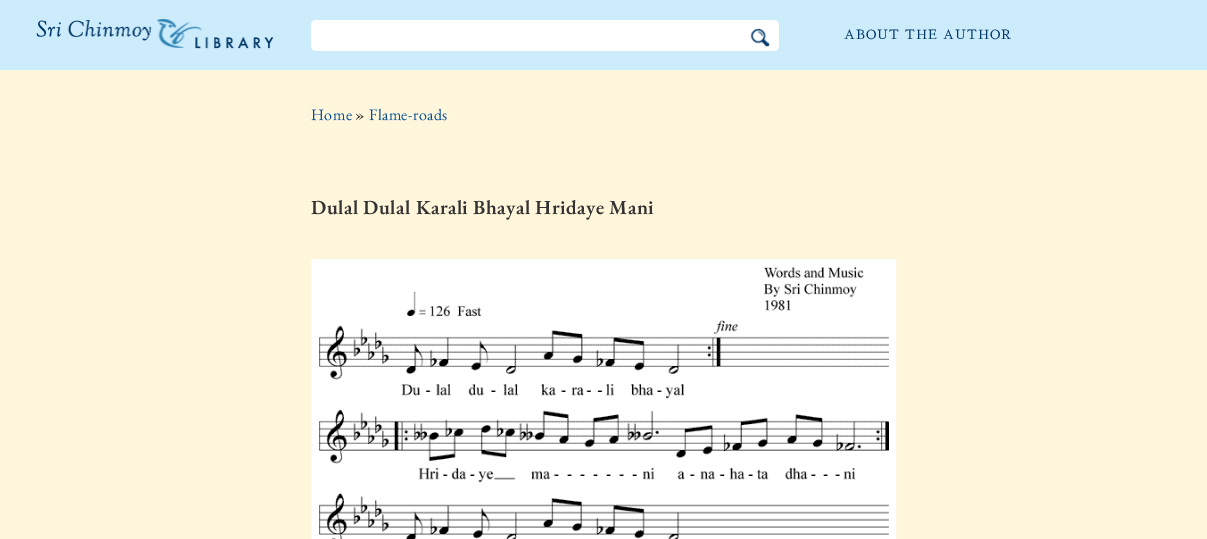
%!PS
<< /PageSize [1207 539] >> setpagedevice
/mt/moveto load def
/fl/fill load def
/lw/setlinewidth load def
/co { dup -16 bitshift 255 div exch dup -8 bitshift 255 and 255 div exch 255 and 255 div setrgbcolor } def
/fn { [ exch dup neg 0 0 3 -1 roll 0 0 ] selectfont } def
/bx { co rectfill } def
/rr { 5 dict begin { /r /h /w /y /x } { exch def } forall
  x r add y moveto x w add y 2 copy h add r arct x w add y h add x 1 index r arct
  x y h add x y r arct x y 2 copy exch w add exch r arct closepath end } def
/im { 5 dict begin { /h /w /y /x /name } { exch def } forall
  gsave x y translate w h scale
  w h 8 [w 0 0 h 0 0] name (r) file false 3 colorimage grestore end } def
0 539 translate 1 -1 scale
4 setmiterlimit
0 0 1207 539 16#FFF6DC bx
0 0 1207 70 16#CCECFC bx
(media/1.raw) 36 19 238 30 im
16#FFFFFF co
311 20 468 31 5 rr fl
(media/2.raw) 750 28 20 19 im
7 lw
314.5 262.5 578 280 rectstroke
(media/3.raw) 318 266 571 273 im
/SawarabiMincho-Regular 12.75 fn
16#023868 co
844 39 mt 1 0 (ABOUT THE AUTHOR) ashow
/EBGaramond-Regular 16 fn
16#034F95 co
311 120 mt .4 0 (Home) ashow
16#222222 co
355 120 mt .4 0 (») ashow
16#034F95 co
369 120 mt .4 0 (Flame-roads) ashow
/EBGaramond-SemiBold 20 fn
16#333333 co
311 214 mt .4 0 (Dulal Dulal Karali Bhayal Hridaye Mani) ashow
showpage
